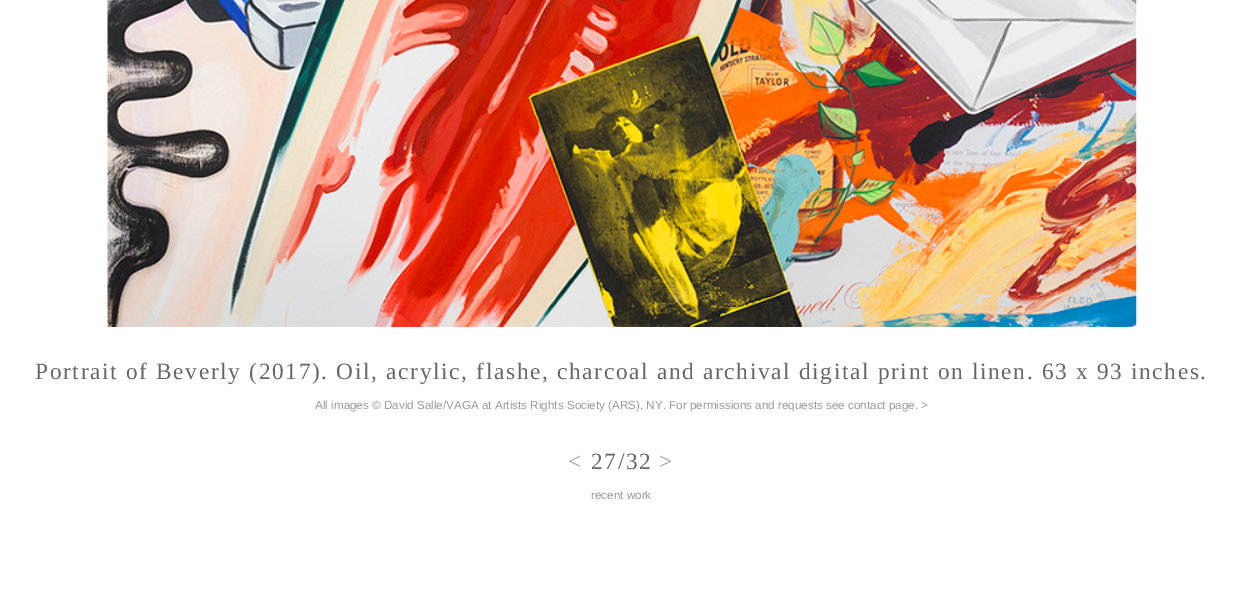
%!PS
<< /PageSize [1242 599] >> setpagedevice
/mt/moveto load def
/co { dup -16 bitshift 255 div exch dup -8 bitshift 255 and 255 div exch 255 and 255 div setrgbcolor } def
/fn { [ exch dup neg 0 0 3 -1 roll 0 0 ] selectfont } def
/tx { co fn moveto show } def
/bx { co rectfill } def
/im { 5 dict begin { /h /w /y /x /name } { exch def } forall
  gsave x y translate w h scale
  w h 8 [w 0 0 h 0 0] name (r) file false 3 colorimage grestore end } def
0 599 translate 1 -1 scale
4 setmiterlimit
0 0 1242 599 16#FFFFFF bx
(media/1.raw) 107 0 1030 327 im
/LiberationSerif-Regular 23.33 fn
16#666666 co
35 379 mt 1.67 0 (Portrait of Beverly \(2017\). Oil, acrylic, flashe, charcoal and archival digital print on linen. 63 x 93 inches.) ashow
(All images © David Salle/VAGA at Artists Rights Society \(ARS\), NY. For permissions and requests see contact page. >) 315 409 /LiberationSans-Regular 11.67 16#999999 tx
/LiberationSerif-Regular 23.33 fn
568 469 mt 1.67 0 (<) ashow
16#666666 co
591 469 mt 1.67 0 (27/32) ashow
16#999999 co
659 469 mt 1.67 0 (>) ashow
(recent work) 591 499 /LiberationSans-Regular 11.67 16#999999 tx
showpage
